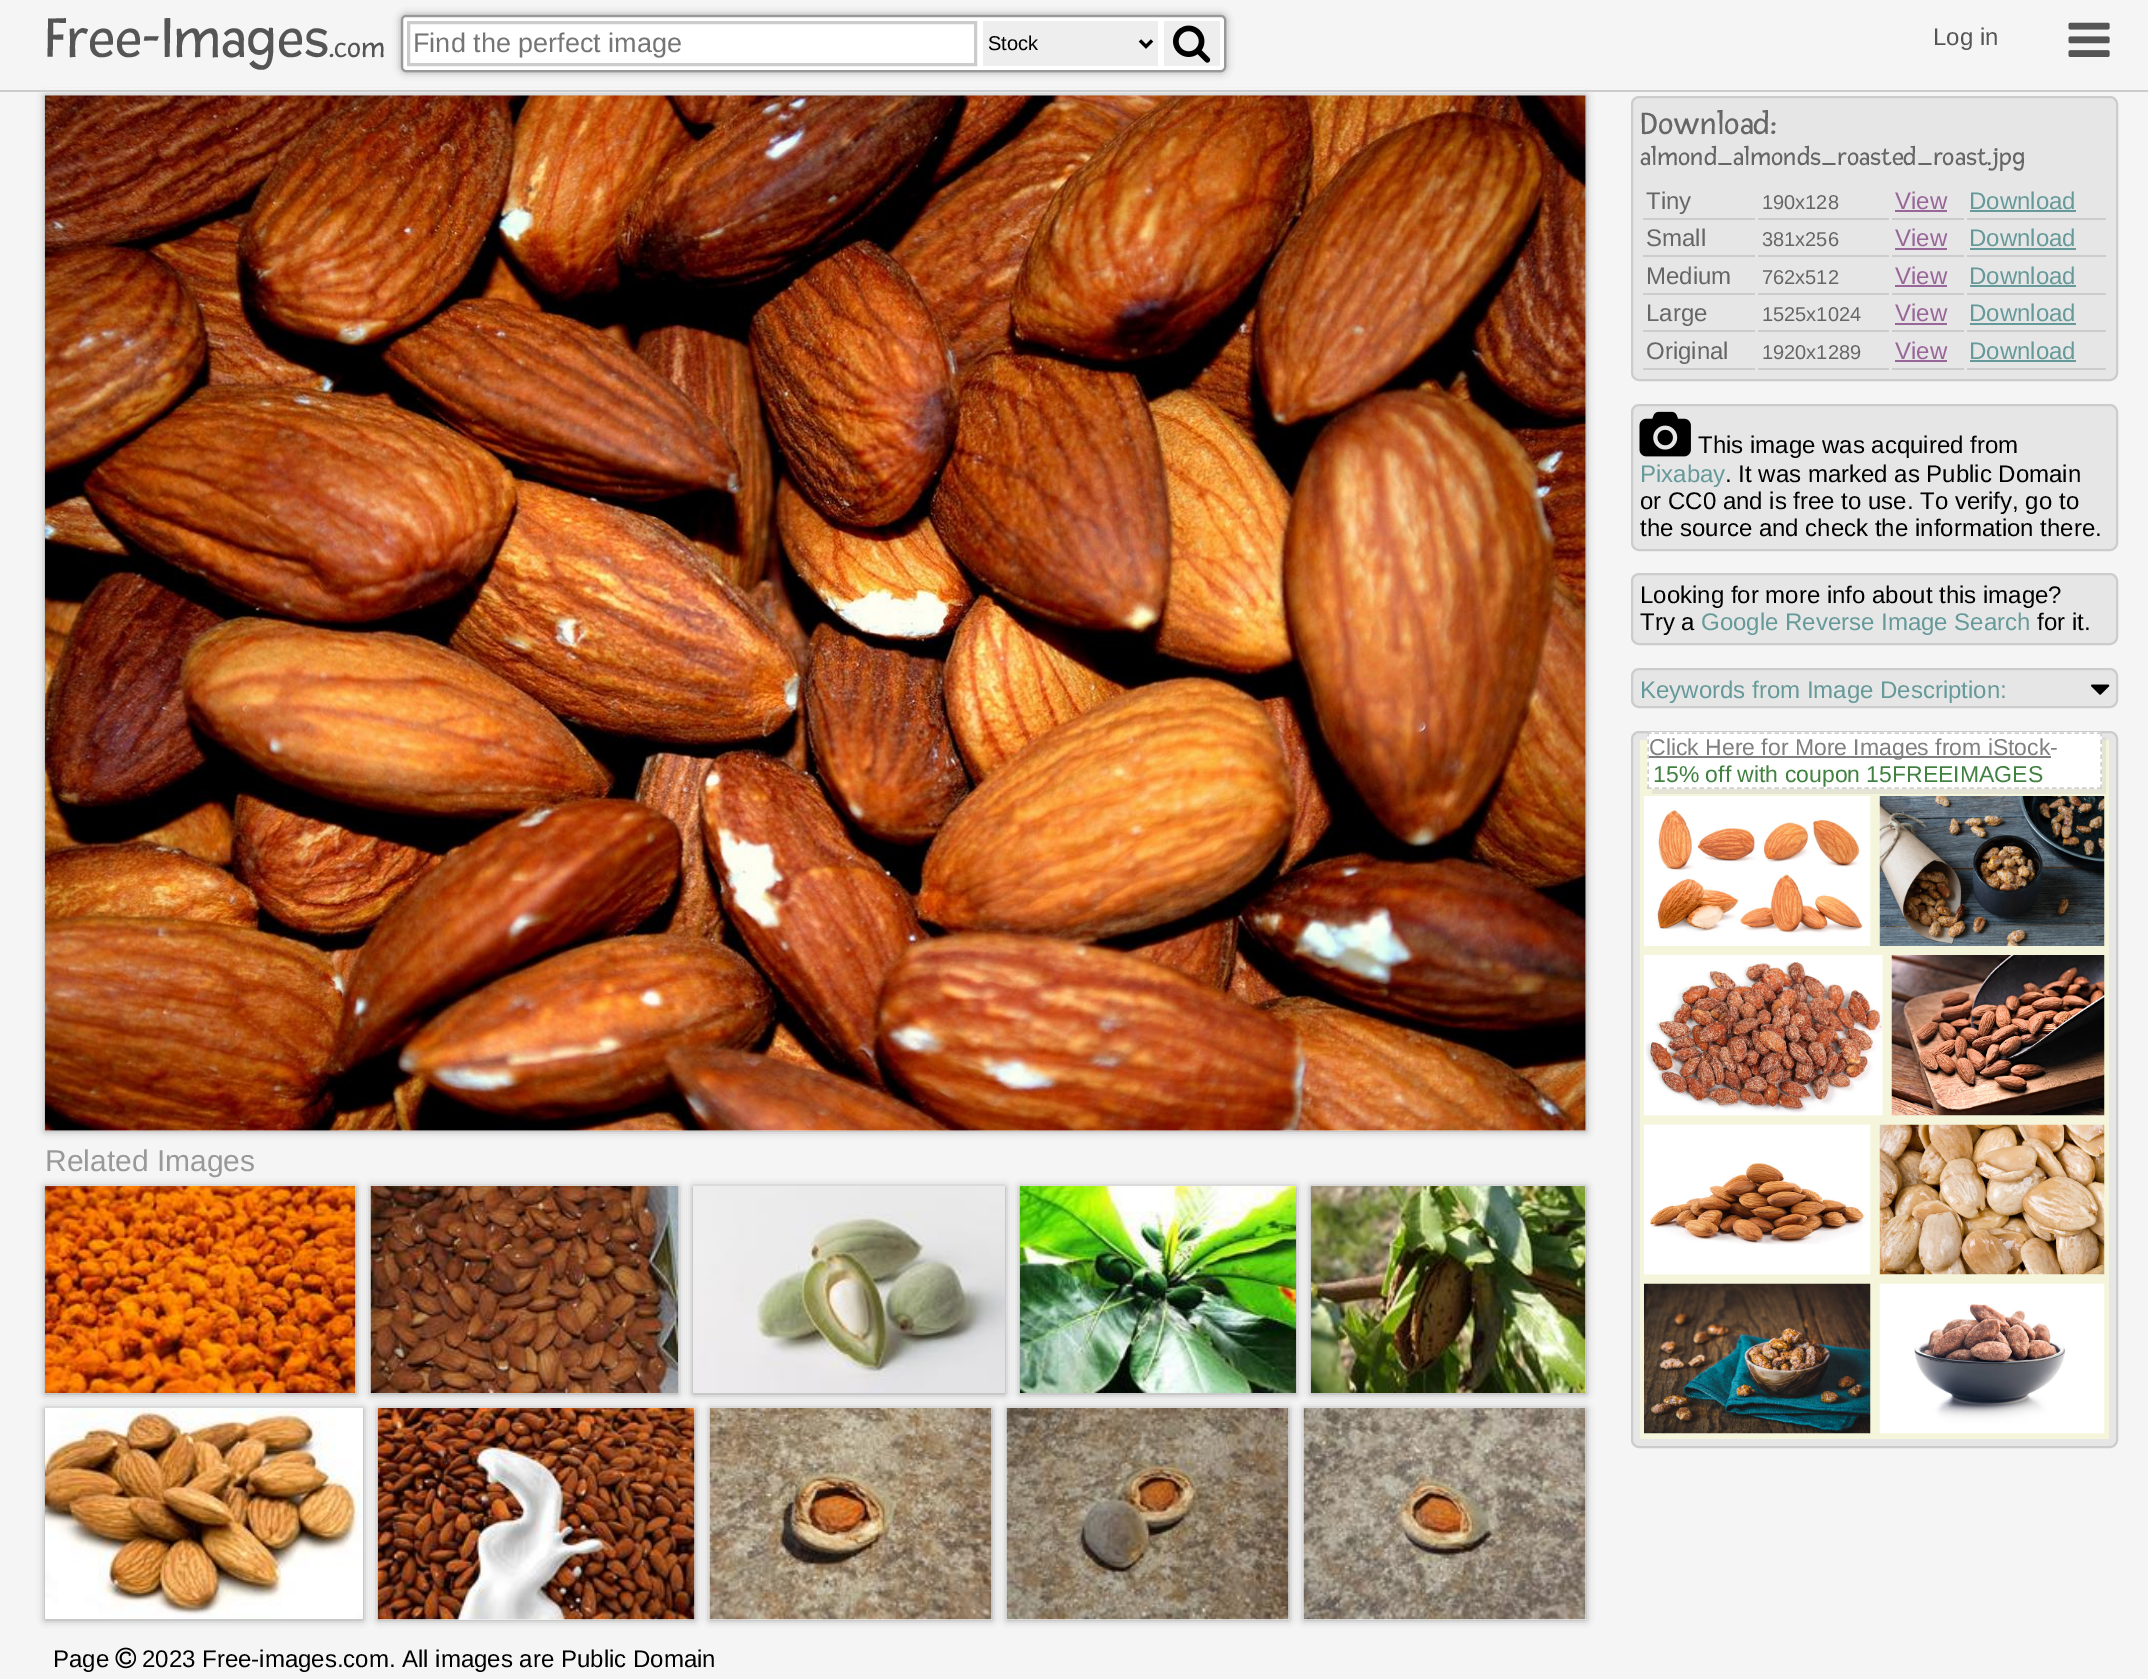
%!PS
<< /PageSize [2148 1679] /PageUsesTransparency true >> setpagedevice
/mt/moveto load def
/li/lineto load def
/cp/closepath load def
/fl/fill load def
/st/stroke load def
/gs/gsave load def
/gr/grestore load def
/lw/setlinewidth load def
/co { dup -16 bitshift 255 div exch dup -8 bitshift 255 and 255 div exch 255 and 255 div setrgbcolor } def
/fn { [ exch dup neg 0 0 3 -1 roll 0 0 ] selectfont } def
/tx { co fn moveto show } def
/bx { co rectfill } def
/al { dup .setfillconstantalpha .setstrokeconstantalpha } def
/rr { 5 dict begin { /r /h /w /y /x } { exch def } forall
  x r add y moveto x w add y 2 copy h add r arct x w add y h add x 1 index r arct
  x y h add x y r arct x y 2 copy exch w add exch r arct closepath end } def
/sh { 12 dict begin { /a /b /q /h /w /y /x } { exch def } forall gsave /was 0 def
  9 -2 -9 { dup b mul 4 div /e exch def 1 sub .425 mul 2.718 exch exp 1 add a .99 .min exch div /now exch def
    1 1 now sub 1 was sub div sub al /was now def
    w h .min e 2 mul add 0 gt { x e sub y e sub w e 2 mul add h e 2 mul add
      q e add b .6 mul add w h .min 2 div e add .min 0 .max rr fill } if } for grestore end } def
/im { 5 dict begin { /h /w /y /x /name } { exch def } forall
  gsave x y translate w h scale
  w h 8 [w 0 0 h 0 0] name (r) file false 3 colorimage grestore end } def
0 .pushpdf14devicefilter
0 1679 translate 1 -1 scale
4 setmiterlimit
0 0 2148 1679 16#F5F5F5 bx
16#999999 co
45 96 1541 1035 0 4 1 sh
46 88 1539 2 16#F5F5F5 bx
0 90 2148 2 16#CCCCCC bx
16#999999 co
401 15 825 57 5 4 1 sh
16#FFFFFF co
402 16 823 55 4 rr gs fl gr
16#999999 co
2 lw
st
16#CCCCCC co
3 lw
408.5 22.5 567 42 rectstroke
983 21 175 45 16#EEEEEE bx
16#000000 co
1140 40.5 mt 1146 46.5 li 1152 40.5 li st
1164 21 56 45 16#EEEEEE bx
(media/1.raw) 1173 25 38 38 im
(media/2.raw) 2068 22 42 35 im
16#E6E6E6 co
1632 97 485 283 7 rr gs fl gr
16#CCCCCC co
2 lw
st
1643 218 112 2 16#CCCCCC bx
1758 218 131 2 16#CCCCCC bx
1892 218 72 2 16#CCCCCC bx
1895 210 52 2 16#996699 bx
1967 218 139 2 16#CCCCCC bx
1970 210 106 2 16#669999 bx
1643 255 112 2 16#CCCCCC bx
1758 255 131 2 16#CCCCCC bx
1892 255 72 2 16#CCCCCC bx
1895 248 52 2 16#996699 bx
1967 255 139 2 16#CCCCCC bx
1970 248 106 2 16#669999 bx
1643 293 112 2 16#CCCCCC bx
1758 293 131 2 16#CCCCCC bx
1892 293 72 2 16#CCCCCC bx
1895 285 52 2 16#996699 bx
1967 293 139 2 16#CCCCCC bx
1970 285 106 2 16#669999 bx
1643 330 112 2 16#CCCCCC bx
1758 330 131 2 16#CCCCCC bx
1892 330 72 2 16#CCCCCC bx
1895 323 52 2 16#996699 bx
1967 330 139 2 16#CCCCCC bx
1970 323 106 2 16#669999 bx
1643 368 112 2 16#CCCCCC bx
1758 368 131 2 16#CCCCCC bx
1892 368 72 2 16#CCCCCC bx
1895 360 52 2 16#996699 bx
1967 368 139 2 16#CCCCCC bx
1970 360 106 2 16#669999 bx
16#E6E6E6 co
1632 405 485 145 7 rr gs fl gr
16#CCCCCC co
st
(media/3.raw) 1639 411 52 46 im
16#E6E6E6 co
1632 574 485 70 7 rr gs fl gr
16#CCCCCC co
st
16#E6E6E6 co
1632 669 485 38 7 rr gs fl gr
16#CCCCCC co
st
(media/4.raw) 2091 684 19 11 im
16#E6E6E6 co
1632 732 485 715 7 rr gs fl gr
16#CCCCCC co
st
1640 740 469 699 16#F5F5DC bx
0.38 al
16#CCCCCC co
1652 789 mt 1652 794 li 2106 794 li 2106 737 li 2102 737 li 2102 789 li cp fl
1 al
1647 732 455 57 16#FFFFFF bx
16#D0D0D0 co
1.5 lw
[4.5 3] 0 setdash
1647 733 mt 2101.5 733 li st
2101 732 mt 2101 789 li st
1647 788 mt 2101.5 788 li st
1648 732 mt 1648 789 li st
1649 756 402 2 16#808080 bx
(media/5.raw) 1644 796 227 150 im
(media/6.raw) 1879 796 226 150 im
(media/7.raw) 1644 955 239 161 im
(media/8.raw) 1891 955 214 161 im
(media/9.raw) 1644 1124 227 151 im
(media/10.raw) 1879 1124 226 151 im
(media/11.raw) 1644 1283 227 151 im
(media/12.raw) 1879 1283 226 151 im
(media/13.raw) 45 95 1541 1036 im
16#999999 co
45 1187 311 207 0 4 1 sh
(media/14.raw) 45 1186 311 207 im
371 1187 307 207 0 4 1 sh
(media/15.raw) 370 1186 308 207 im
693 1187 312 207 0 4 1 sh
(media/16.raw) 693 1186 312 207 im
1020 1187 276 207 0 4 1 sh
(media/17.raw) 1020 1186 276 207 im
1311 1187 275 207 0 4 1 sh
(media/18.raw) 1311 1186 275 207 im
45 1409 318 211 0 4 1 sh
(media/19.raw) 45 1408 318 211 im
378 1409 317 211 0 4 1 sh
(media/20.raw) 378 1408 317 212 im
710 1409 282 211 0 4 1 sh
(media/21.raw) 709 1408 283 212 im
1007 1409 282 211 0 4 1 sh
(media/22.raw) 1006 1408 283 212 im
1304 1409 282 211 0 4 1 sh
(media/23.raw) 1303 1408 283 212 im
(media/24.raw) 115 1647 22 22 im
(Free-Images) 45 57 /Fresca-Regular 60 16#555555 tx
(.com) 329 57 /Fresca-Regular 30 16#555555 tx
(Find the perfect image) 413 52 /LiberationSans-Regular 27 16#757575 tx
(Stock) 988 50 /LiberationSans-Regular 20 16#000000 tx
(Log in) 1933 45 /LiberationSans-Regular 24 16#555555 tx
(Download:) 1640 134 /Fresca-Regular 33 16#666666 tx
(almond_almonds_roasted_roast.jpg) 1640 165 /Fresca-Regular 26.4 16#666666 tx
(Tiny) 1646 209 /LiberationSans-Regular 24 16#666666 tx
(190x128) 1762 209 /LiberationSans-Regular 20 16#666666 tx
(View) 1895 209 /LiberationSans-Regular 24 16#996699 tx
(Download) 1969 209 /LiberationSans-Regular 24 16#669999 tx
(Small) 1646 246 /LiberationSans-Regular 24 16#666666 tx
(381x256) 1762 246 /LiberationSans-Regular 20 16#666666 tx
(View) 1895 246 /LiberationSans-Regular 24 16#996699 tx
(Download) 1969 246 /LiberationSans-Regular 24 16#669999 tx
(Medium) 1646 284 /LiberationSans-Regular 24 16#666666 tx
(762x512) 1762 284 /LiberationSans-Regular 20 16#666666 tx
(View) 1895 284 /LiberationSans-Regular 24 16#996699 tx
(Download) 1969 284 /LiberationSans-Regular 24 16#669999 tx
(Large) 1646 321 /LiberationSans-Regular 24 16#666666 tx
(1525x1024) 1762 321 /LiberationSans-Regular 20 16#666666 tx
(View) 1895 321 /LiberationSans-Regular 24 16#996699 tx
(Download) 1969 321 /LiberationSans-Regular 24 16#669999 tx
(Original) 1646 359 /LiberationSans-Regular 24 16#666666 tx
(1920x1289) 1762 359 /LiberationSans-Regular 20 16#666666 tx
(View) 1895 359 /LiberationSans-Regular 24 16#996699 tx
(Download) 1969 359 /LiberationSans-Regular 24 16#669999 tx
(This image was acquired from) 1698 453 /LiberationSans-Regular 24 16#000000 tx
(Pixabay) 1640 482 /LiberationSans-Regular 24 16#669999 tx
(. It was marked as Public Domain) 1725 482 /LiberationSans-Regular 24 16#000000 tx
(or CC0 and is free to use. To verify, go to) 1640 509 /LiberationSans-Regular 24 16#000000 tx
(the source and check the information there.) 1640 536 /LiberationSans-Regular 24 16#000000 tx
(Looking for more info about this image?) 1640 603 /LiberationSans-Regular 24 16#000000 tx
(Try a) 1640 630 /LiberationSans-Regular 24 16#000000 tx
(Google Reverse Image Search) 1701 630 /LiberationSans-Regular 24 16#669999 tx
(for it.) 2037 630 /LiberationSans-Regular 24 16#000000 tx
(Keywords from Image Description:) 1640 698 /LiberationSans-Regular 24 16#669999 tx
(Click Here for More Images from iStock-) 1649 755 /LiberationSans-Regular 23 16#808080 tx
(15% off with coupon 15FREEIMAGES) 1653 782 /LiberationSans-Regular 23 16#408040 tx
(Related Images) 45 1171 /LiberationSans-Regular 30 16#999999 tx
(Page) 53 1667 /LiberationSans-Regular 24 16#000000 tx
(2023 Free-images.com. All images are Public Domain) 142 1667 /LiberationSans-Regular 24 16#000000 tx
.poppdf14devicefilter showpage
